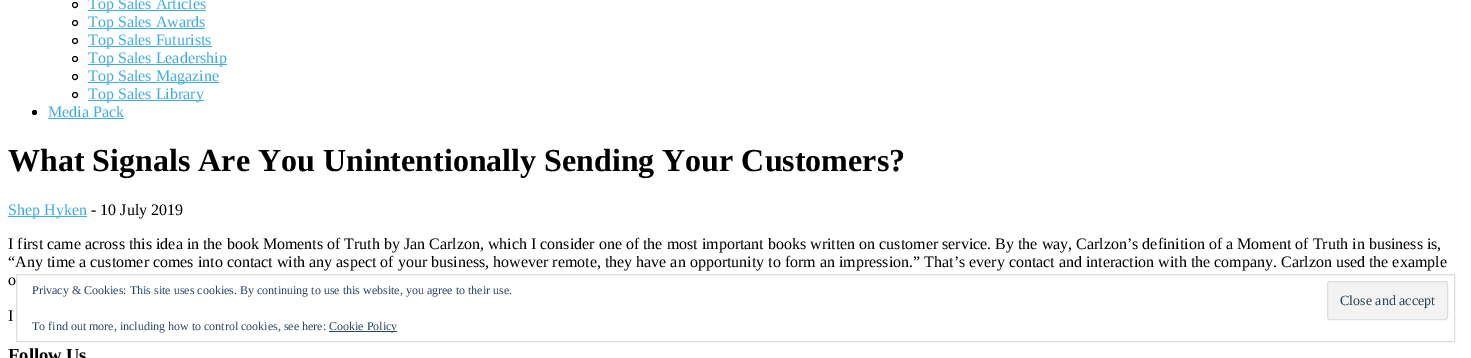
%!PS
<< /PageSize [1471 358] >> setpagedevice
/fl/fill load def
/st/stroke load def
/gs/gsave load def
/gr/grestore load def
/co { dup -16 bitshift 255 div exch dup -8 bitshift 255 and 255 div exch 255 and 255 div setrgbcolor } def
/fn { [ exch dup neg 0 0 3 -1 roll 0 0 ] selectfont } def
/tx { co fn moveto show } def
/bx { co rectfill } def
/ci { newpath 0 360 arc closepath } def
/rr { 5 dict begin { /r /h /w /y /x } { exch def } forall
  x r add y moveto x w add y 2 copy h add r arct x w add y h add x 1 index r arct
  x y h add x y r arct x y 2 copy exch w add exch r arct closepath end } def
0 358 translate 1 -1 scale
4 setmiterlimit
0 0 1471 358 16#FFFFFF bx
16#000000 co
75 5 2.5 ci st
88 10 118 1 16#3FACE2 bx
16#000000 co
75 23 2.5 ci st
88 28 117 1 16#3FACE2 bx
16#000000 co
75 41 2.5 ci st
88 46 124 1 16#3FACE2 bx
16#000000 co
75 59 2.5 ci st
88 64 139 1 16#3FACE2 bx
16#000000 co
75 77 2.5 ci st
88 82 131 1 16#3FACE2 bx
16#000000 co
75 95 2.5 ci st
88 100 116 1 16#3FACE2 bx
16#000000 co
34.5 112.5 2.5 ci fl
48 118 76 1 16#3FACE2 bx
8 216 79 1 16#3FACE2 bx
16#DEDEDE co
16.5 274.5 1438 67 rectstroke
16#F3F3F3 co
1327.5 281.5 120 38 2.5 rr gs fl gr
16#DEDEDE co
st
329 331 68 1 16#2E4467 bx
(Top Sales Articles) 88 9 /LiberationSerif-Regular 16 16#3FACE2 tx
(Top Sales Awards) 88 27 /LiberationSerif-Regular 16 16#3FACE2 tx
(Top Sales Futurists) 88 45 /LiberationSerif-Regular 16 16#3FACE2 tx
(Top Sales Leadership) 88 63 /LiberationSerif-Regular 16 16#3FACE2 tx
(Top Sales Magazine) 88 81 /LiberationSerif-Regular 16 16#3FACE2 tx
(Top Sales Library) 88 99 /LiberationSerif-Regular 16 16#3FACE2 tx
(Media Pack) 48 117 /LiberationSerif-Regular 16 16#3FACE2 tx
(What Signals Are You Unintentionally Sending Your Customers?) 8 171 /LiberationSerif-Bold 32 16#000000 tx
(Shep Hyken) 8 215 /LiberationSerif-Regular 16 16#3FACE2 tx
(- 10 July 2019) 91 215 /LiberationSerif-Regular 16 16#000000 tx
(I first came across this idea in the book Moments of Truth by Jan Carlzon, which I consider one of the most important books written on customer service. By the way, Carlzon’s definition of a Moment of Truth in business is,) 8 249 /LiberationSerif-Regular 16 16#000000 tx
(“Any time a customer comes into contact with any aspect of your business, however remote, they have an opportunity to form an impression.” That’s every contact and interaction with the company. Carlzon used the example) 8 267 /LiberationSerif-Regular 16 16#000000 tx
(o) 8 285 /LiberationSerif-Regular 16 16#000000 tx
(I) 8 321 /LiberationSerif-Regular 16 16#000000 tx
(Follow Us) 8 361 /LiberationSerif-Bold 18.5 16#000000 tx
(Privacy & Cookies: This site uses cookies. By continuing to use this website, you agree to their use.) 32 294 /LiberationSerif-Regular 12 16#2E4467 tx
(Close and accept) 1340 305 /LiberationSerif-Regular 14 16#2E4453 tx
(To find out more, including how to control cookies, see here:) 32 330 /LiberationSerif-Regular 12 16#2E4467 tx
(Cookie Policy) 329 330 /LiberationSerif-Regular 12 16#2E4467 tx
showpage
